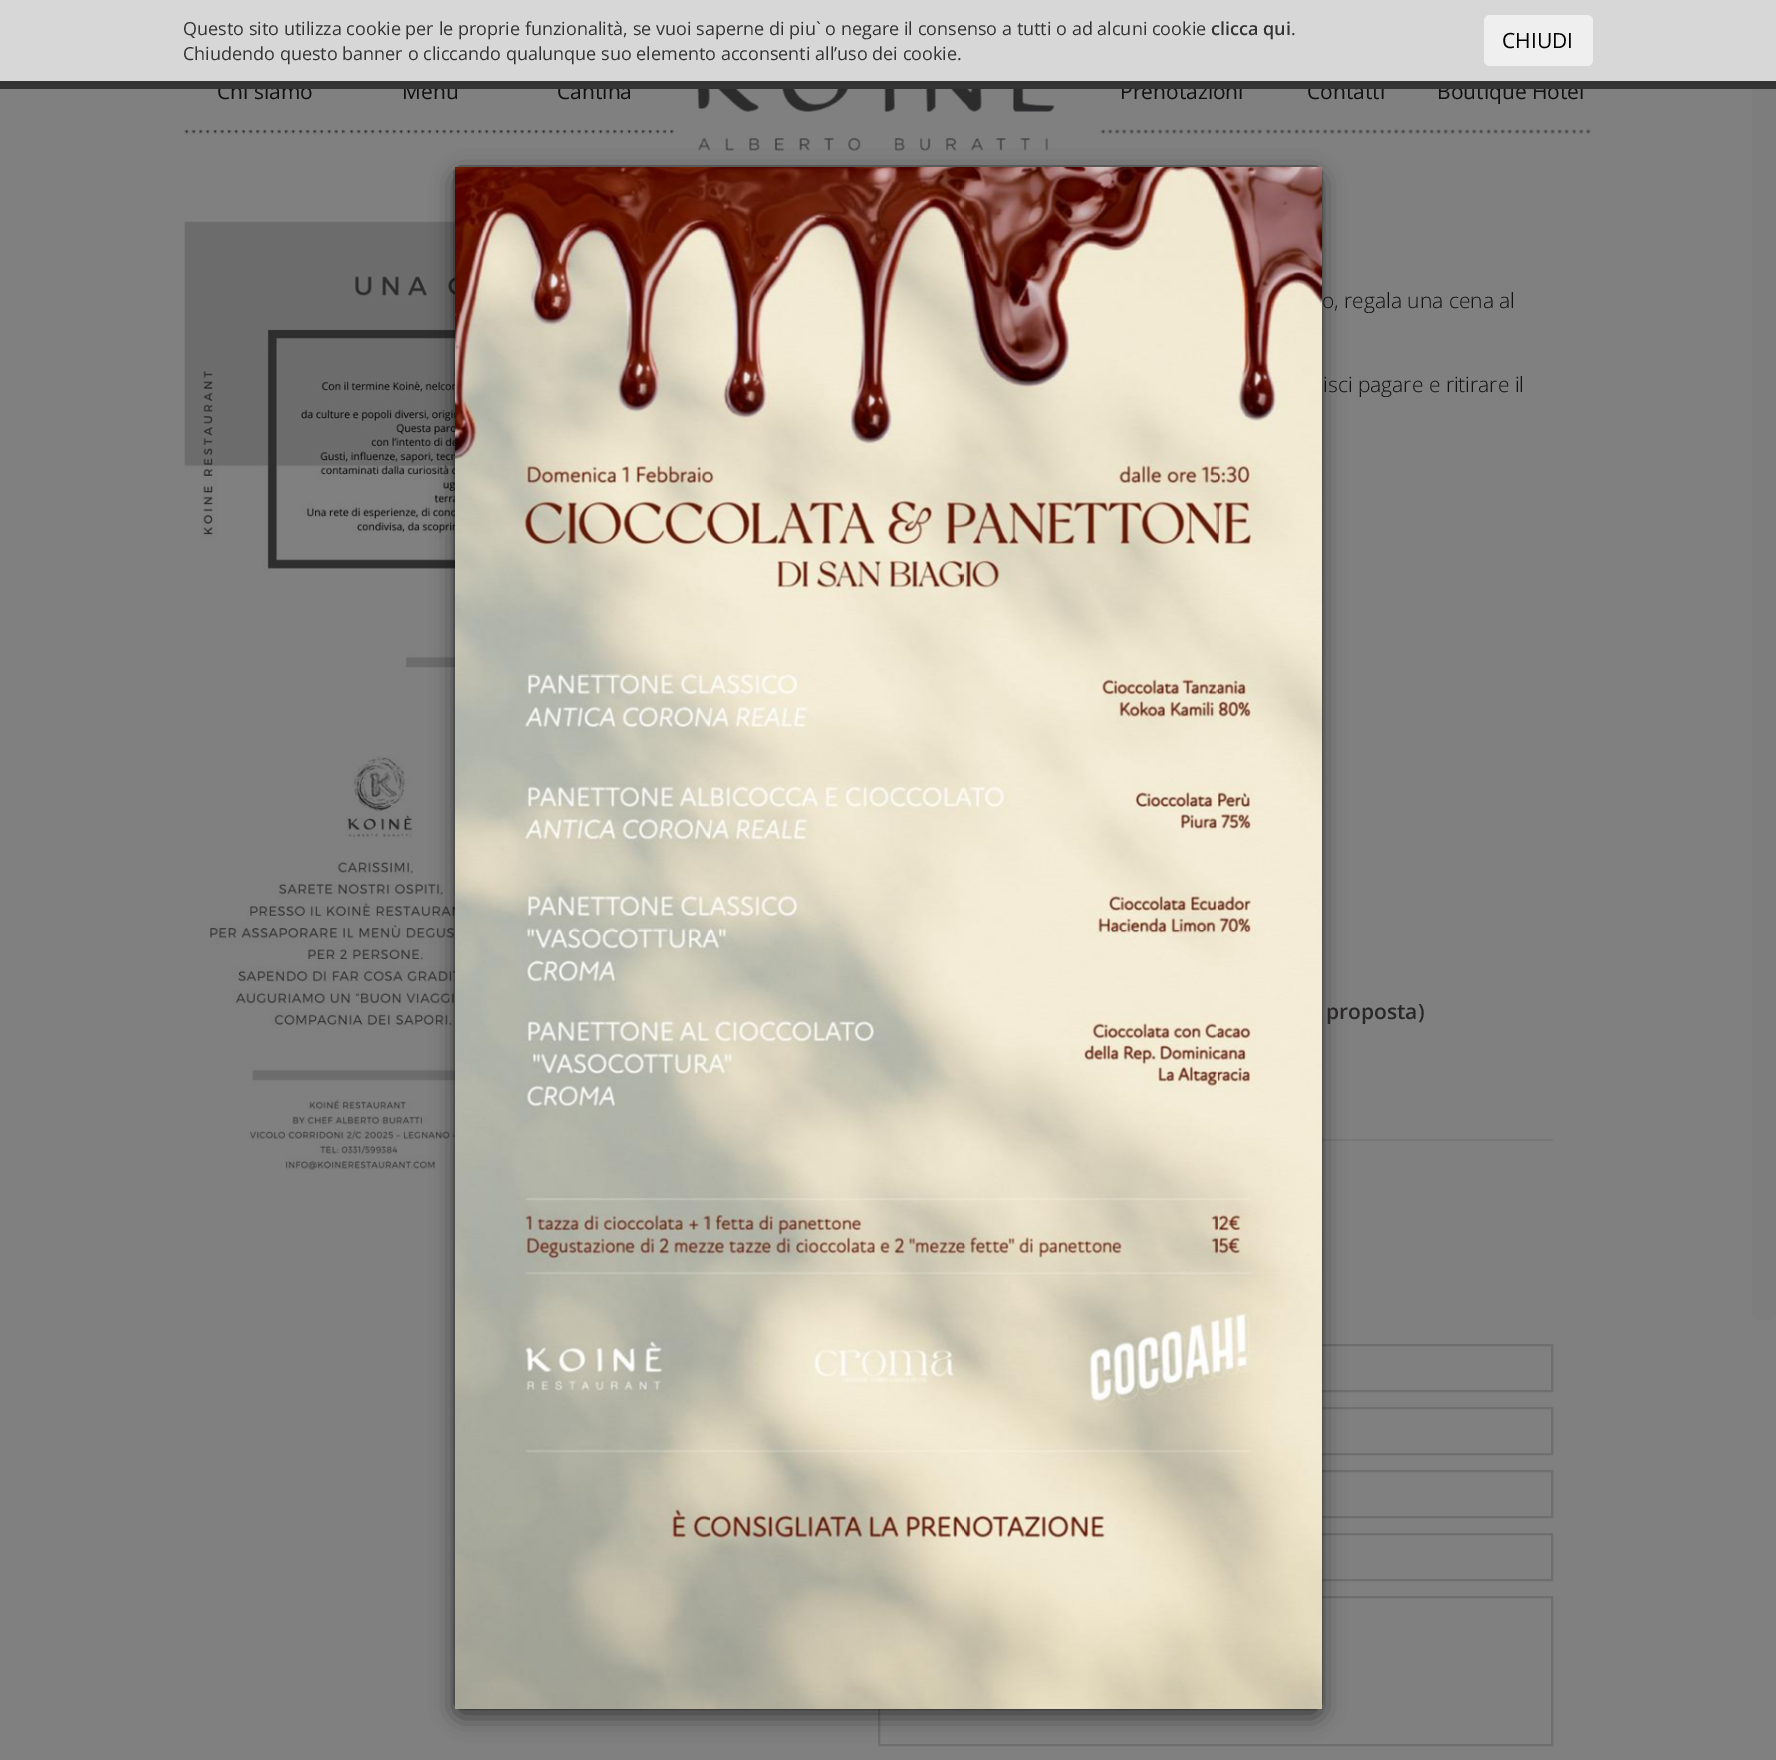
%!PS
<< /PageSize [1776 1760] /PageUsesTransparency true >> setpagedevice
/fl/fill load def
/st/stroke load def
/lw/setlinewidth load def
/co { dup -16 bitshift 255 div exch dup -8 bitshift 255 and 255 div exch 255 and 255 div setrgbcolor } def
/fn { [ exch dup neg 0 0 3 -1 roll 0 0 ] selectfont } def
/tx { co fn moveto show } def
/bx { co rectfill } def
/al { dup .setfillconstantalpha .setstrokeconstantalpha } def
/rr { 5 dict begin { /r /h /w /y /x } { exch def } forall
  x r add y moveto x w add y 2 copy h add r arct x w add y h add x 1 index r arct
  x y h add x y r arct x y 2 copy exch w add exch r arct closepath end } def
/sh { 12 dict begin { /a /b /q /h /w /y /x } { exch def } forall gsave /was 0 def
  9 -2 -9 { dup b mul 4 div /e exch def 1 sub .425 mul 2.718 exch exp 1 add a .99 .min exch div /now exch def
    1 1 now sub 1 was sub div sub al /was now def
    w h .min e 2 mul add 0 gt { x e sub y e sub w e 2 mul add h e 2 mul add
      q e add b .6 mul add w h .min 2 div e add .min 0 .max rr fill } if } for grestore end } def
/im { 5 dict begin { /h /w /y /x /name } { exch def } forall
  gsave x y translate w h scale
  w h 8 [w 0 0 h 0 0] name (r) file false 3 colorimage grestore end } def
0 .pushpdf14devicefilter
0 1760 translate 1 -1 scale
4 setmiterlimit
0 0 1776 1760 16#808080 bx
16#7D7D7D co
1752 0 24 1320 8 rr fl
0 0 1776 81 16#D7D7D7 bx
16#EFEFEF co
1484 15 109 51 6 rr fl
(media/5.raw) 697 89 358 62 im
(media/8.raw) 184 221 271 447 im
(media/9.raw) 210 711 245 459 im
1322 1139 231 2 16#777777 bx
16#6F6F6F co
2 lw
879 1345 673 46 rectstroke
879 1408 673 46 rectstroke
879 1471 673 46 rectstroke
879 1534 673 46 rectstroke
879 1597 673 148 rectstroke
16#000000 co
453 173 870 1545 9 11 .5 sh
0.2 al
454 166 868 1543 8 rr st
1 al
(media/1.raw) 455 167 867 1542 im
(media/2.raw) 184 129 164 5 im
(media/3.raw) 349 129 162 5 im
(media/4.raw) 512 129 165 5 im
(media/6.raw) 1100 129 163 5 im
(media/6.raw) 1265 129 163 5 im
(media/7.raw) 1429 129 162 5 im
(Questo sito utilizza cookie per le proprie funzionalità, se vuoi saperne di piu` o negare il consenso a tutti o ad alcuni cookie) 183 35 /OpenSans-Regular 18 16#333333 tx
(clicca qui) 1211 35 /OpenSans-SemiBold 18 16#333333 tx
(.) 1291 35 /OpenSans-Regular 18 16#333333 tx
(Chiudendo questo banner o cliccando qualunque suo elemento acconsenti all’uso dei cookie.) 183 60 /OpenSans-Regular 18 16#333333 tx
(CHIUDI) 1502 48 /OpenSans-Regular 21 16#000000 tx
(Chi siamo) 217 99 /OpenSans-Regular 21 16#121010 tx
(Menu) 402 99 /OpenSans-Regular 21 16#121010 tx
(Cantina) 557 99 /OpenSans-Regular 21 16#121010 tx
(Prenotazioni) 1120 99 /OpenSans-Regular 21 16#121010 tx
(Contatti) 1307 99 /OpenSans-Regular 21 16#121010 tx
(Boutique Hotel) 1437 99 /OpenSans-Regular 21 16#121010 tx
0 81 1776 8 16#333333 bx
(o, regala una cena al) 1322 308 /OpenSans-Light 21 16#121010 tx
(isci pagare e ritirare il) 1323 392 /OpenSans-Light 21 16#121010 tx
(proposta\)) 1326 1019 /OpenSans-SemiBold 21 16#292727 tx
.poppdf14devicefilter showpage
